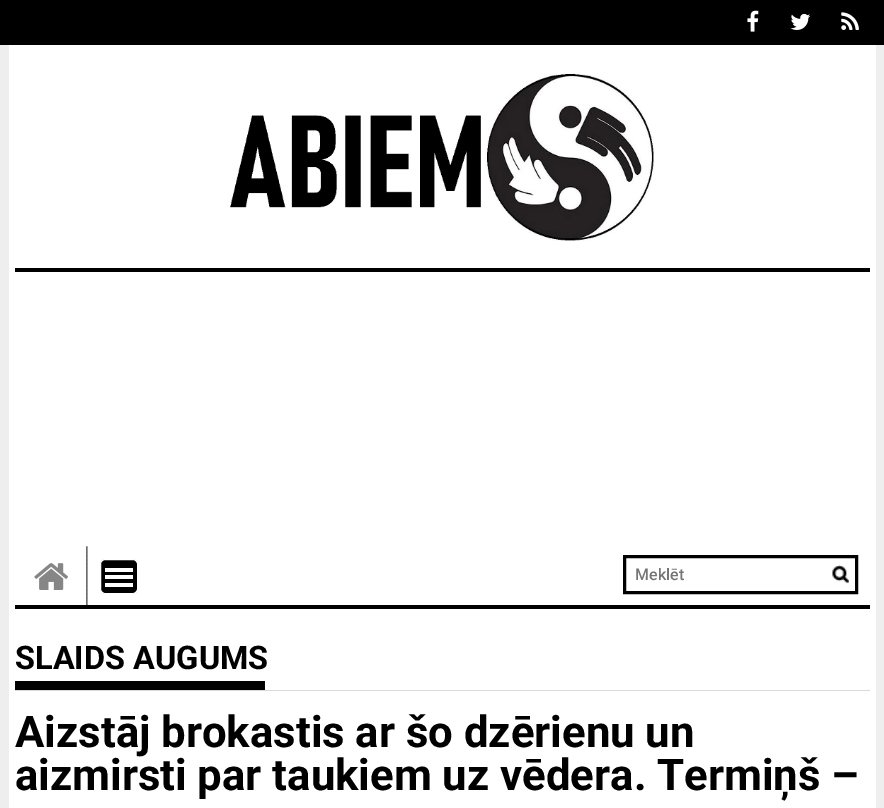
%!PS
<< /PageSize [884 808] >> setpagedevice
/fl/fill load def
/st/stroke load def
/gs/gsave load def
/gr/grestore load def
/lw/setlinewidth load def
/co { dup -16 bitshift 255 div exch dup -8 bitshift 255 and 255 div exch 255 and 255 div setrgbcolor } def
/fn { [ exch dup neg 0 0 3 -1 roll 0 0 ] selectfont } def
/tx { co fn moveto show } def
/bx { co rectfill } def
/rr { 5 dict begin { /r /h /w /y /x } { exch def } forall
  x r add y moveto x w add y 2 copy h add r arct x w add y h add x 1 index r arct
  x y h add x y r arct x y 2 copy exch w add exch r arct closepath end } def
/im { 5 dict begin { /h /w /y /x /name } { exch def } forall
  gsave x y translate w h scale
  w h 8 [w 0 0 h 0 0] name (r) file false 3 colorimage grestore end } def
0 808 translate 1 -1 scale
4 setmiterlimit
0 0 884 808 16#EEEEEF bx
0 0 884 45 16#000000 bx
(media/1.raw) 747 10 12 22 im
(media/2.raw) 790 13 21 17 im
(media/3.raw) 841 12 18 18 im
9 45 867 763 16#FFFFFF bx
15 268 855 4 16#000000 bx
(media/4.raw) 230 73 425 168 im
15 605 855 4 16#000000 bx
100.5 559.5 37 34 4.5 rr gs fl gr
16#FFFFFF co
st
105 583 28 4 16#FFFFFF bx
105 575 28 4 16#FFFFFF bx
105 568 28 4 16#FFFFFF bx
(media/5.raw) 86 546 2 59 im
(media/6.raw) 34 563 34 27 im
16#000000 co
3 lw
624.5 556.5 232 36 rectstroke
(media/7.raw) 832 565 17 19 im
15 690 855 1 16#D9D9D9 bx
15 681 250 9 16#000000 bx
(Meklēt) 635 580 /Roboto-Medium 16 16#757575 tx
(SLAIDS AUGUMS) 15 669 /Roboto-Bold 32.5 16#000000 tx
(Aizstāj brokastis ar šo dzērienu un) 15 747 /Roboto-Bold 43.75 16#000000 tx
(aizmirsti par taukiem uz vēdera. Termiņš –) 15 790 /Roboto-Bold 43.75 16#000000 tx
showpage
